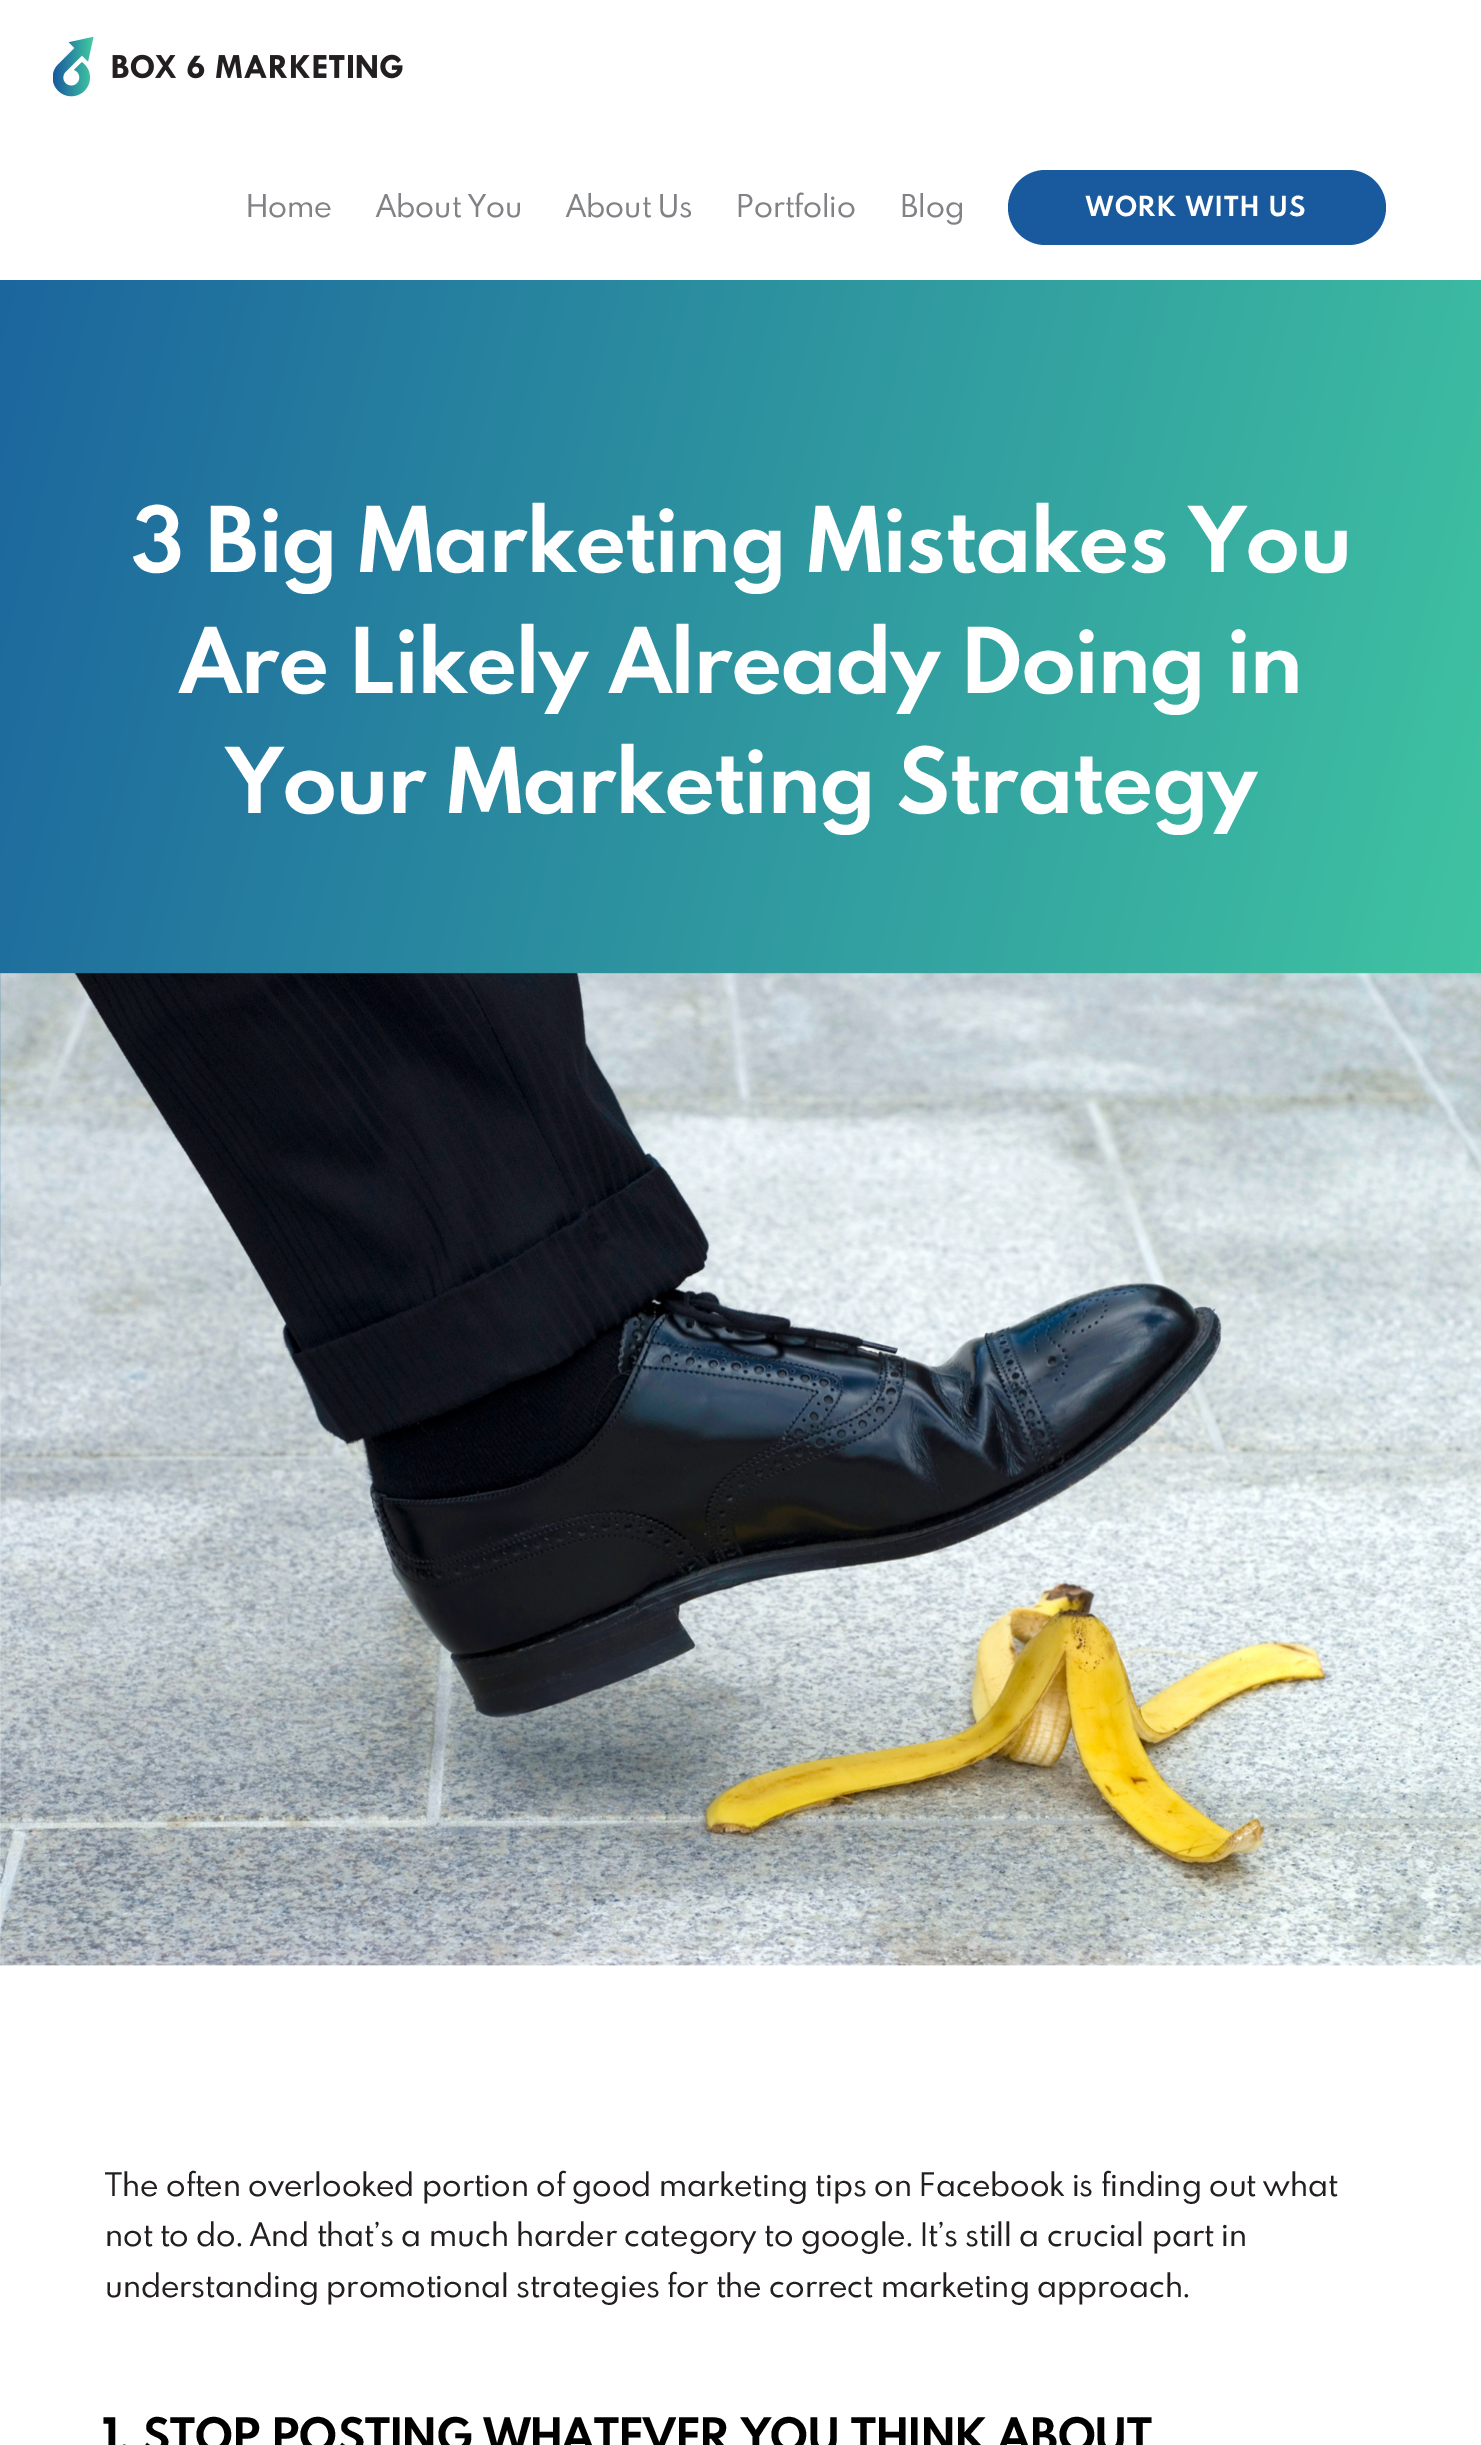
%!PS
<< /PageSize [1481 2445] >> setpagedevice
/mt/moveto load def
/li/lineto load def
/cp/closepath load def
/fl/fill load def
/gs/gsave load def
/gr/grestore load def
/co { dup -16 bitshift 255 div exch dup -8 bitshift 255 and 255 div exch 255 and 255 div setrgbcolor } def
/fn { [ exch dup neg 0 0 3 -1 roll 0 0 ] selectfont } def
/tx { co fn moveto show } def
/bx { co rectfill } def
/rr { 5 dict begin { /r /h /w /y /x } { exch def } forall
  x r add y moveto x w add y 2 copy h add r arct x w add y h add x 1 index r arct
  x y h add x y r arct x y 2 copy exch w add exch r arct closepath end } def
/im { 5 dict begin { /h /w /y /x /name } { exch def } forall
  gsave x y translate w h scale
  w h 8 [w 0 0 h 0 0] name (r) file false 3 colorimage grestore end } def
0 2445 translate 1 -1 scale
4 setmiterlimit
0 0 1481 2445 16#FFFFFF bx
(media/1.raw) 53 36 350 61 im
16#185A9D co
1008 170 378 75 37.5 rr fl
gs 0 280 mt 1481 280 li 1481 1286 li 0 1286 li cp clip newpath
<< /ShadingType 2 /ColorSpace /DeviceRGB /Coords [-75 580 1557 987] /Extend [true true] /Function << /FunctionType 2 /Domain [0 1] /C0 [.11 .4 .62] /C1 [.255 .784 .635] /N 1 >> >> shfill gr
(media/2.raw) 0 973 1481 993 im
(Home) 246 217 /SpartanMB-Regular 28 16#808285 tx
(About You) 376 217 /SpartanMB-Regular 28 16#808285 tx
(About Us) 566 217 /SpartanMB-Regular 28 16#808285 tx
(Portfolio) 736 217 /SpartanMB-Regular 28 16#808285 tx
(Blog) 900 217 /SpartanMB-Regular 28 16#808285 tx
/SpartanMB-Bold 24.5 fn
16#FFFFFF co
1086 216 mt 1.75 0 (WORK WITH US) ashow
(3 Big Marketing Mistakes You) 131 572 /SpartanMB-Bold 80.4 16#FFFFFF tx
(Are Likely Already Doing in) 180 693 /SpartanMB-Bold 80.4 16#FFFFFF tx
(Your Marketing Strategy) 226 813 /SpartanMB-Bold 80.4 16#FFFFFF tx
(The often overlooked portion of good marketing tips on Facebook is finding out what) 105 2196 /SpartanMB-Regular 28.9 16#231F20 tx
(not to do. And that’s a much harder category to google. It’s still a crucial part in) 105 2246 /SpartanMB-Regular 28.9 16#231F20 tx
(understanding promotional strategies for the correct marketing approach.) 105 2297 /SpartanMB-Regular 28.9 16#231F20 tx
(1. STOP POSTING WHATEVER YOU THINK ABOUT) 105 2452 /SpartanMB-Bold 42 16#000000 tx
showpage
